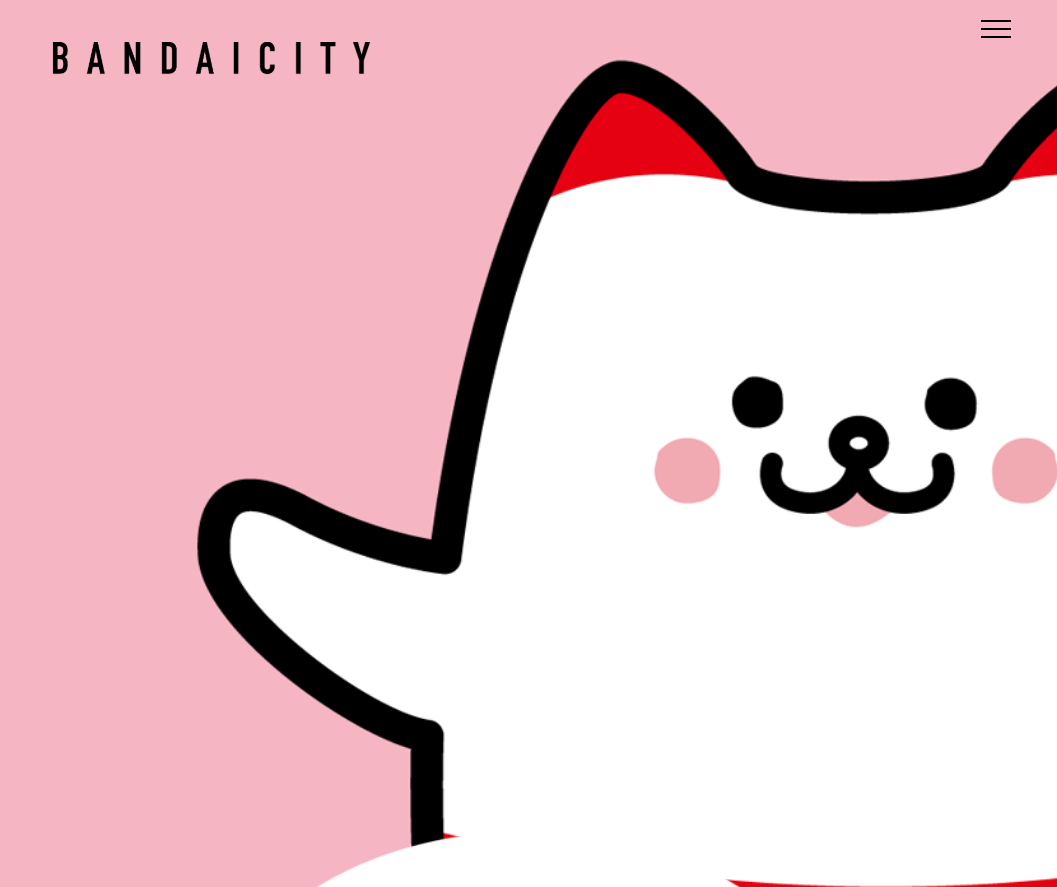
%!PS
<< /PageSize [1057 887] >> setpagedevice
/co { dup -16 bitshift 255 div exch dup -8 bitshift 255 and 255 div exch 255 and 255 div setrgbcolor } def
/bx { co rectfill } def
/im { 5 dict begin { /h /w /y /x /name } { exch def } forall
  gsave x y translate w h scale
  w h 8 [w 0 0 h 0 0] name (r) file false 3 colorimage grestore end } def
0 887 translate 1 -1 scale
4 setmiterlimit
0 0 1057 887 16#FFFFFF bx
(media/1.raw) 0 0 1057 887 im
(media/2.raw) 52 42 318 33 im
(media/3.raw) 316 836 425 51 im
981 20 30 2 16#000000 bx
981 28 30 2 16#000000 bx
981 36 30 2 16#000000 bx
showpage
